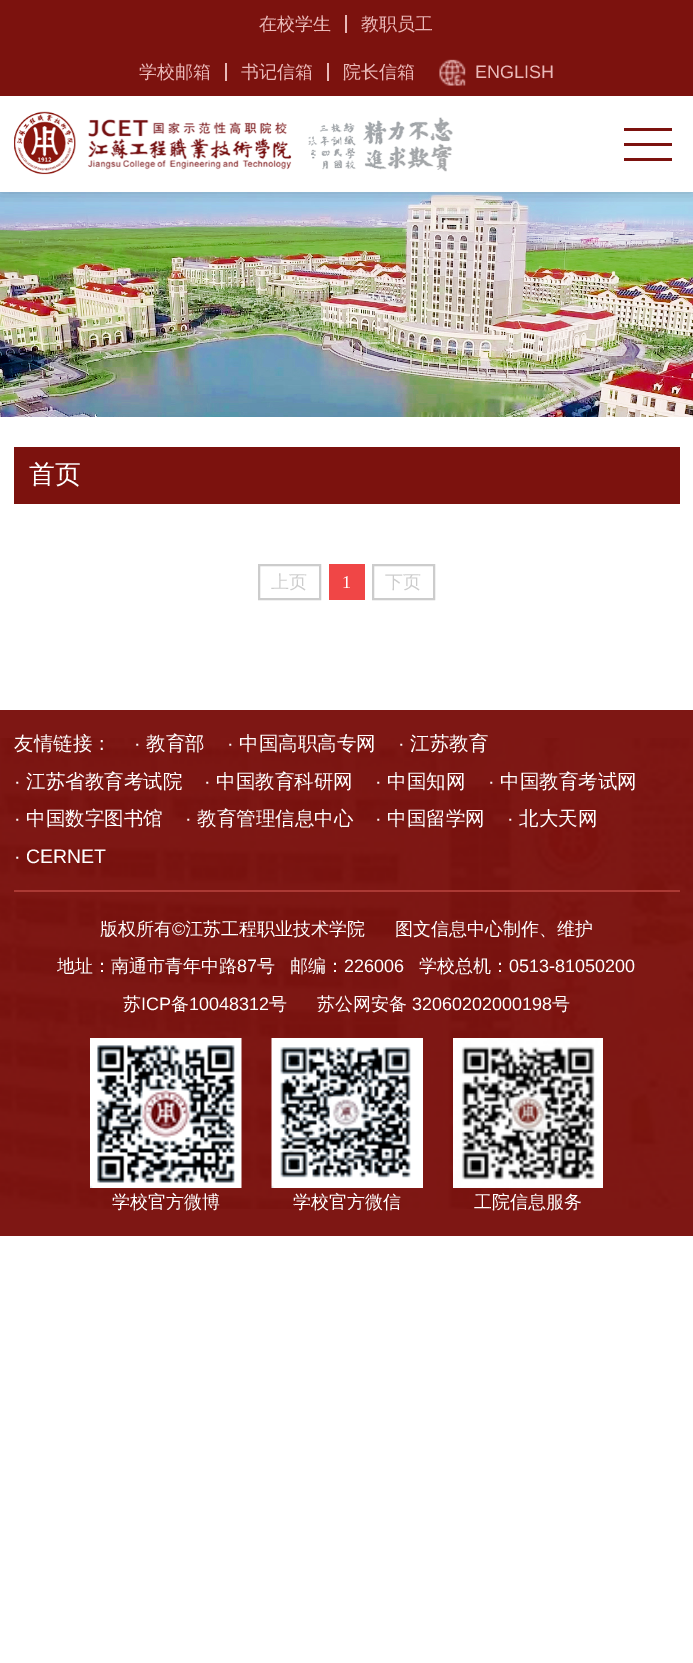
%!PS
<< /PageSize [693 1663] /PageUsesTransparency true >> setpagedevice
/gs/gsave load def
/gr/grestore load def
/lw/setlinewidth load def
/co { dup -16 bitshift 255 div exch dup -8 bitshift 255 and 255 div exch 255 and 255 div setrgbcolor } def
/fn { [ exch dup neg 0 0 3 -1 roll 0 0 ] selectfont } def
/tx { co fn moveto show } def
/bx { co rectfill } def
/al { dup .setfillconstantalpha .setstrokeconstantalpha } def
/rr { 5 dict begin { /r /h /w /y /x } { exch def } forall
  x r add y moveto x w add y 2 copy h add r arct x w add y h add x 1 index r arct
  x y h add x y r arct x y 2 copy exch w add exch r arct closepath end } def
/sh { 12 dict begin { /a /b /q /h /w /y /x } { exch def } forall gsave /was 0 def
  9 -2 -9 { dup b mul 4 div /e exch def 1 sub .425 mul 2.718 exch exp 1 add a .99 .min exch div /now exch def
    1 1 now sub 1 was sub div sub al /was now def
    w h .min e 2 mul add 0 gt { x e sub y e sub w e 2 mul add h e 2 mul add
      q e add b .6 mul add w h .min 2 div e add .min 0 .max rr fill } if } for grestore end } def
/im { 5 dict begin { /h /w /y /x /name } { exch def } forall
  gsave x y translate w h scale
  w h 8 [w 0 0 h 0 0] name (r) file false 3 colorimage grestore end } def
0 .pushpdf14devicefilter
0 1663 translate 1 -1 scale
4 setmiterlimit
0 0 693 1663 16#FFFFFF bx
(media/3.raw) 0 192 693 225 im
gs
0 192 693 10 rectclip
16#000000 co
0 0 693 192 0 7.5 .2 sh
gr
0 0 693 96 16#7C120E bx
345 15 2 18 16#EAB9B8 bx
225 63 2 18 16#EAB9B8 bx
327 63 2 18 16#EAB9B8 bx
(media/1.raw) 439 59 27 27 im
(media/2.raw) 14 111 439 64 im
624 128 48 3 16#7C120E bx
624 143 48 3 16#7C120E bx
624 158 48 3 16#7C120E bx
14 447 666 57 16#7C120E bx
16#CCCCCC co
2 lw
259 565 61 34 rectstroke
329 564 36 36 16#F04646 bx
16#CCCCCC co
373 565 61 34 rectstroke
0 710 693 526 16#7E1714 bx
(media/4.raw) 0 738 693 471 im
14 890 666 2 16#AB3934 bx
(media/5.raw) 90 1038 152 150 im
(media/6.raw) 271 1038 152 150 im
(media/7.raw) 453 1038 150 150 im
(在校学生) 259 30 /WenQuanYiZenHei-Medium 18 16#EAB9B8 tx
(教职员工) 361 30 /WenQuanYiZenHei-Medium 18 16#EAB9B8 tx
(学校邮箱) 139 78 /WenQuanYiZenHei-Medium 18 16#EAB9B8 tx
(书记信箱) 241 78 /WenQuanYiZenHei-Medium 18 16#EAB9B8 tx
(院长信箱) 343 78 /WenQuanYiZenHei-Medium 18 16#EAB9B8 tx
(ENGLISH) 475 78 /LiberationSans-Regular 18 16#EAB9B8 tx
(首页) 29 483 /WenQuanYiZenHei-Medium 26 16#FFFFFF tx
(上页) 271 588 /WenQuanYiZenHei-Medium 18 16#CCCCCC tx
(1) 342 588 /LiberationSerif-Regular 18 16#FFFFFF tx
(下页) 385 588 /WenQuanYiZenHei-Medium 18 16#CCCCCC tx
(友情链接：) 14 750 /WenQuanYiZenHei-Medium 19.5 16#FFFFFF tx
(·) 134 750 /LiberationSans-Regular 19.5 16#FFFFFF tx
(教育部) 146 750 /WenQuanYiZenHei-Medium 19.5 16#FFFFFF tx
(·) 227 750 /LiberationSans-Regular 19.5 16#FFFFFF tx
(中国高职高专网) 239 750 /WenQuanYiZenHei-Medium 19.5 16#FFFFFF tx
(·) 398 750 /LiberationSans-Regular 19.5 16#FFFFFF tx
(江苏教育) 410 750 /WenQuanYiZenHei-Medium 19.5 16#FFFFFF tx
(·) 14 788 /LiberationSans-Regular 19.5 16#FFFFFF tx
(江苏省教育考试院) 26 788 /WenQuanYiZenHei-Medium 19.5 16#FFFFFF tx
(·) 204 788 /LiberationSans-Regular 19.5 16#FFFFFF tx
(中国教育科研网) 216 788 /WenQuanYiZenHei-Medium 19.5 16#FFFFFF tx
(·) 375 788 /LiberationSans-Regular 19.5 16#FFFFFF tx
(中国知网) 387 788 /WenQuanYiZenHei-Medium 19.5 16#FFFFFF tx
(·) 488 788 /LiberationSans-Regular 19.5 16#FFFFFF tx
(中国教育考试网) 500 788 /WenQuanYiZenHei-Medium 19.5 16#FFFFFF tx
(·) 14 825 /LiberationSans-Regular 19.5 16#FFFFFF tx
(中国数字图书馆) 26 825 /WenQuanYiZenHei-Medium 19.5 16#FFFFFF tx
(·) 185 825 /LiberationSans-Regular 19.5 16#FFFFFF tx
(教育管理信息中心) 197 825 /WenQuanYiZenHei-Medium 19.5 16#FFFFFF tx
(·) 375 825 /LiberationSans-Regular 19.5 16#FFFFFF tx
(中国留学网) 387 825 /WenQuanYiZenHei-Medium 19.5 16#FFFFFF tx
(·) 507 825 /LiberationSans-Regular 19.5 16#FFFFFF tx
(北大天网) 519 825 /WenQuanYiZenHei-Medium 19.5 16#FFFFFF tx
(· CERNET) 14 863 /LiberationSans-Regular 19.5 16#FFFFFF tx
(版权所有) 100 935 /WenQuanYiZenHei-Medium 18 16#FFFFFF tx
(©) 172 935 /LiberationSans-Regular 18 16#FFFFFF tx
(江苏工程职业技术学院) 185 935 /WenQuanYiZenHei-Medium 18 16#FFFFFF tx
(图文信息中心制作、维护) 395 935 /WenQuanYiZenHei-Medium 18 16#FFFFFF tx
(地址：南通市青年中路) 57 972 /WenQuanYiZenHei-Medium 18 16#FFFFFF tx
(87) 237 972 /LiberationSans-Regular 18 16#FFFFFF tx
(号) 257 972 /WenQuanYiZenHei-Medium 18 16#FFFFFF tx
(邮编：) 290 972 /WenQuanYiZenHei-Medium 18 16#FFFFFF tx
(226006) 344 972 /LiberationSans-Regular 18 16#FFFFFF tx
(学校总机：) 419 972 /WenQuanYiZenHei-Medium 18 16#FFFFFF tx
(0513-81050200) 509 972 /LiberationSans-Regular 18 16#FFFFFF tx
(苏) 123 1010 /WenQuanYiZenHei-Medium 18 16#FFFFFF tx
(ICP) 141 1010 /LiberationSans-Regular 18 16#FFFFFF tx
(备) 171 1010 /WenQuanYiZenHei-Medium 18 16#FFFFFF tx
(10048312) 189 1010 /LiberationSans-Regular 18 16#FFFFFF tx
(号) 269 1010 /WenQuanYiZenHei-Medium 18 16#FFFFFF tx
(苏公网安备) 317 1010 /WenQuanYiZenHei-Medium 18 16#FFFFFF tx
(32060202000198) 412 1010 /LiberationSans-Regular 18 16#FFFFFF tx
(号) 552 1010 /WenQuanYiZenHei-Medium 18 16#FFFFFF tx
(学校官方微博) 112 1208 /WenQuanYiZenHei-Medium 18 16#FFFFFF tx
(学校官方微信) 293 1208 /WenQuanYiZenHei-Medium 18 16#FFFFFF tx
(工院信息服务) 474 1208 /WenQuanYiZenHei-Medium 18 16#FFFFFF tx
.poppdf14devicefilter showpage
